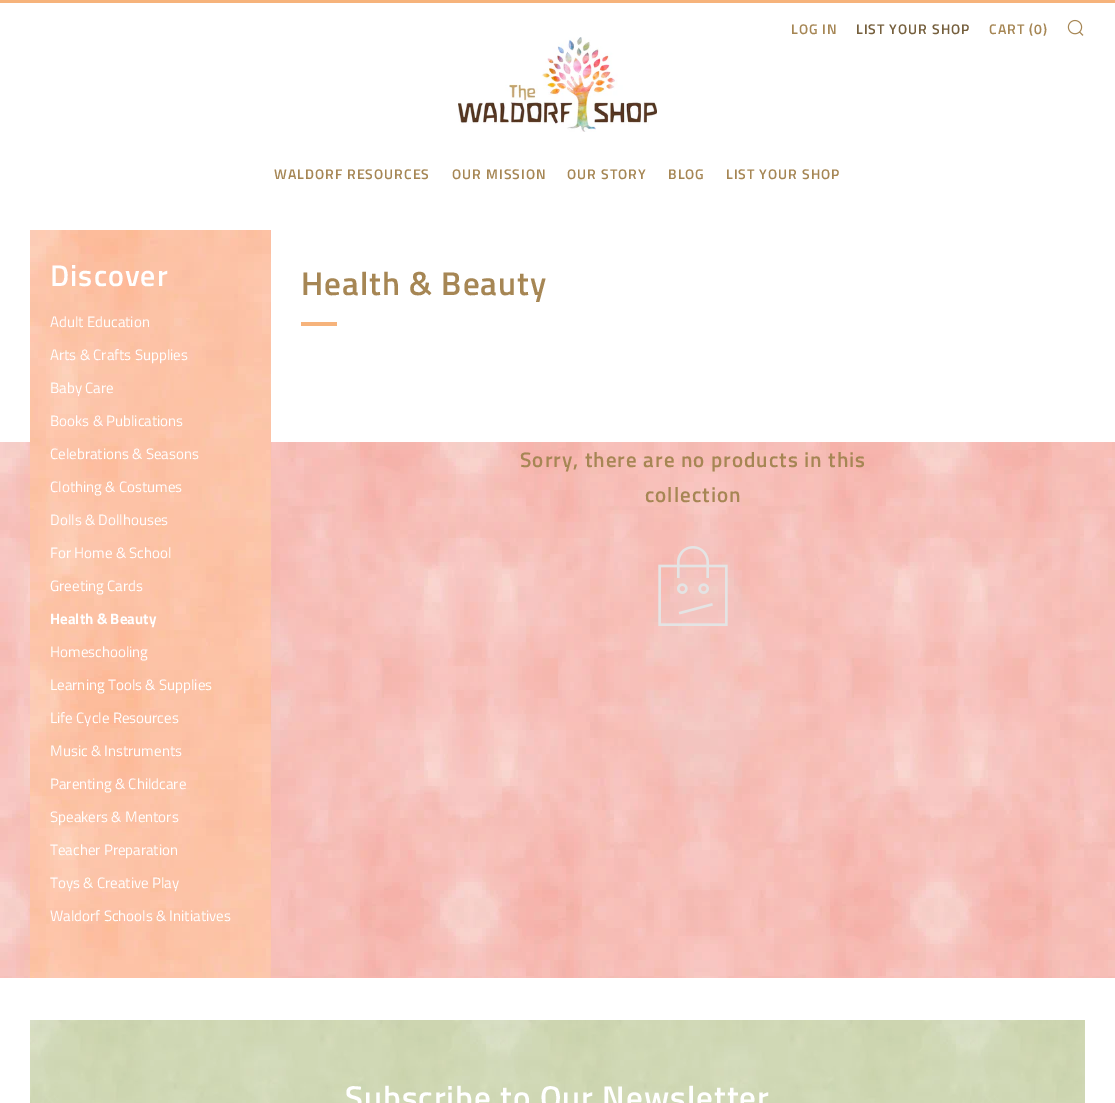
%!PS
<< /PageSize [1115 1103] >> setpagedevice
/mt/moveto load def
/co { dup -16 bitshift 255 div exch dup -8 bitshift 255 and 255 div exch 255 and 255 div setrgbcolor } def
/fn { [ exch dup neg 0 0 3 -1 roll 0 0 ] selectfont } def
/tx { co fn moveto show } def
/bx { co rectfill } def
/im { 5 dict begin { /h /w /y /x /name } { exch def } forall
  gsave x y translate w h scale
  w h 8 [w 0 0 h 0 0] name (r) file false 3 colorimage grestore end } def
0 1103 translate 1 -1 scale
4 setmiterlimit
0 0 1115 1103 16#FFFFFF bx
0 0 1115 3 16#F6B37B bx
(media/1.raw) 1067 19 17 17 im
(media/2.raw) 458 37 199 95 im
(media/4.raw) 0 442 1115 536 im
(media/3.raw) 30 230 241 748 im
301 322 36 4 16#F6B37B bx
(media/5.raw) 658 546 70 80 im
(media/6.raw) 30 1020 1055 83 im
/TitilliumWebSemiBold-SemiBold 14 fn
16#A68654 co
791 34 mt 1 0 (LOG IN) ashow
16#755F3D co
856 34 mt 1 0 (LIST YOUR SHOP) ashow
16#A68654 co
989 34 mt 1 0 (CART \(0\)) ashow
274 179 mt 1 0 (WALDORF RESOURCES) ashow
452 179 mt 1 0 (OUR MISSION) ashow
567 179 mt 1 0 (OUR STORY) ashow
668 179 mt 1 0 (BLOG) ashow
726 179 mt 1 0 (LIST YOUR SHOP) ashow
/TitilliumWebSemiBold-SemiBold 30 fn
16#FFFFFF co
50 286 mt 1 0 (Discover) ashow
(Adult Education) 50 327 /TitilliumWeb-Regular 15 16#FFFFFF tx
(Arts & Crafts Supplies) 50 360 /TitilliumWeb-Regular 15 16#FFFFFF tx
(Baby Care) 50 393 /TitilliumWeb-Regular 15 16#FFFFFF tx
(Books & Publications) 50 426 /TitilliumWeb-Regular 15 16#FFFFFF tx
(Celebrations & Seasons) 50 459 /TitilliumWeb-Regular 15 16#FFFFFF tx
(Clothing & Costumes) 50 492 /TitilliumWeb-Regular 15 16#FFFFFF tx
(Dolls & Dollhouses) 50 525 /TitilliumWeb-Regular 15 16#FFFFFF tx
(For Home & School) 50 558 /TitilliumWeb-Regular 15 16#FFFFFF tx
(Greeting Cards) 50 591 /TitilliumWeb-Regular 15 16#FFFFFF tx
(Health & Beauty) 50 624 /TitilliumWeb-Bold 15 16#FFFFFF tx
(Homeschooling) 50 657 /TitilliumWeb-Regular 15 16#FFFFFF tx
(Learning Tools & Supplies) 50 690 /TitilliumWeb-Regular 15 16#FFFFFF tx
(Life Cycle Resources) 50 723 /TitilliumWeb-Regular 15 16#FFFFFF tx
(Music & Instruments) 50 756 /TitilliumWeb-Regular 15 16#FFFFFF tx
(Parenting & Childcare) 50 789 /TitilliumWeb-Regular 15 16#FFFFFF tx
(Speakers & Mentors) 50 822 /TitilliumWeb-Regular 15 16#FFFFFF tx
(Teacher Preparation) 50 855 /TitilliumWeb-Regular 15 16#FFFFFF tx
(Toys & Creative Play) 50 888 /TitilliumWeb-Regular 15 16#FFFFFF tx
(Waldorf Schools & Initiatives) 50 921 /TitilliumWeb-Regular 15 16#FFFFFF tx
/TitilliumWebSemiBold-SemiBold 33 fn
16#A68654 co
301 295 mt 1 0 (Health & Beauty) ashow
/TitilliumWebSemiBold-SemiBold 21 fn
520 467 mt 1 0 (Sorry, there are no products in this) ashow
645 502 mt 1 0 (collection) ashow
/TitilliumWebSemiBold-SemiBold 33 fn
16#FFFFFF co
345 1109 mt 1 0 (Subscribe to Our Newsletter) ashow
showpage
